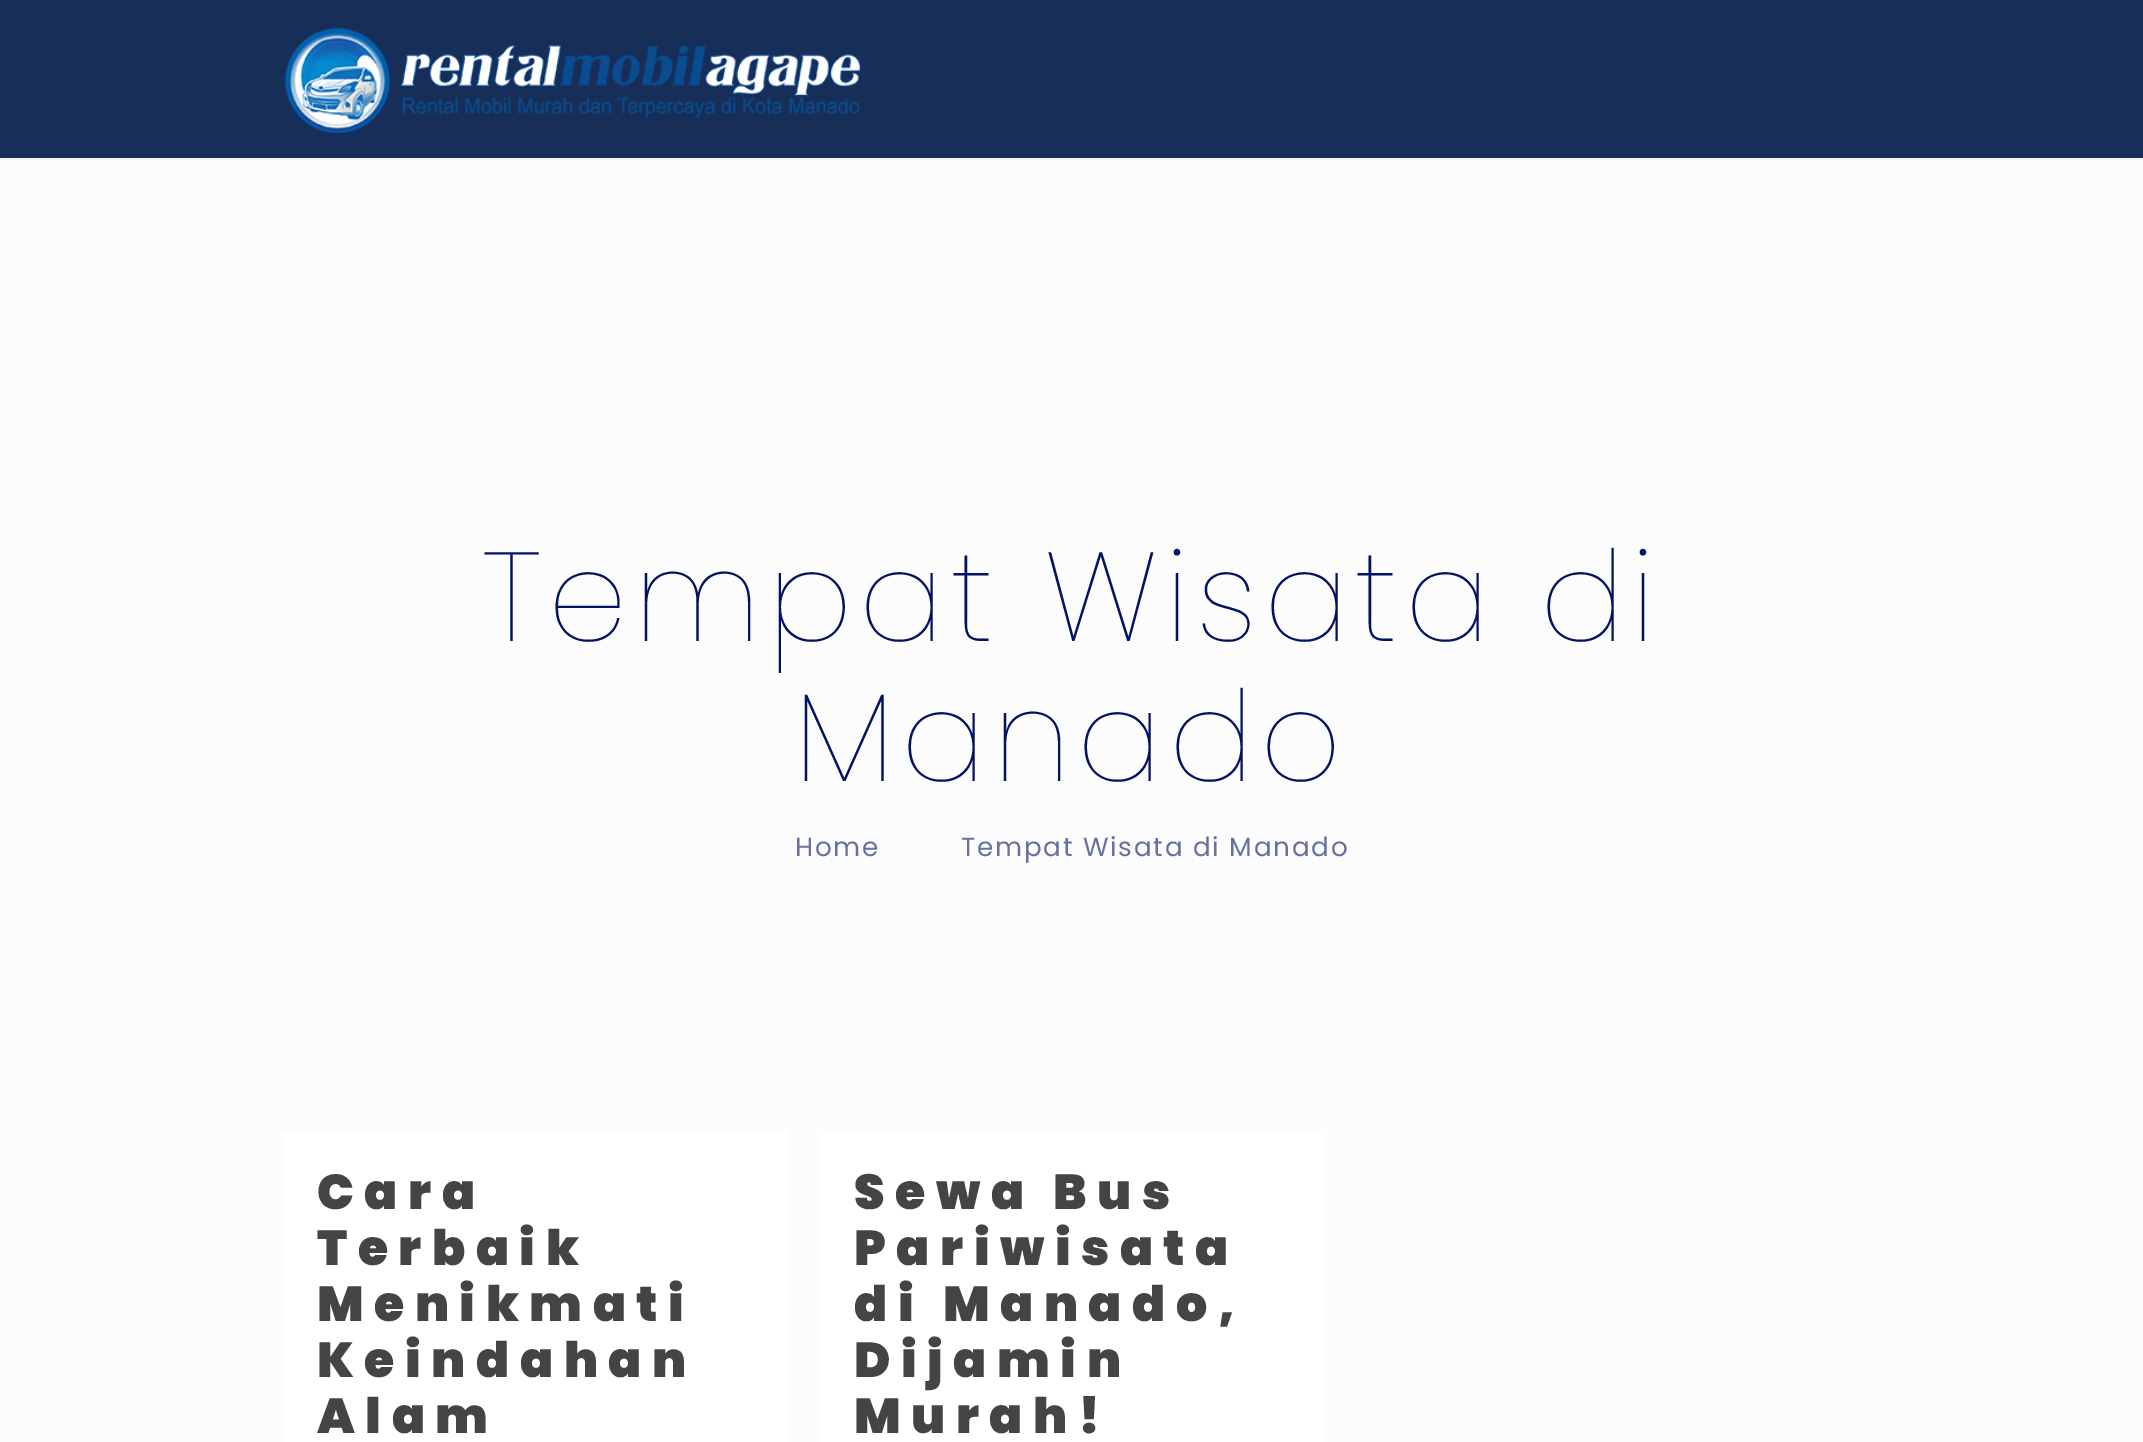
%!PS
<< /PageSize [2143 1442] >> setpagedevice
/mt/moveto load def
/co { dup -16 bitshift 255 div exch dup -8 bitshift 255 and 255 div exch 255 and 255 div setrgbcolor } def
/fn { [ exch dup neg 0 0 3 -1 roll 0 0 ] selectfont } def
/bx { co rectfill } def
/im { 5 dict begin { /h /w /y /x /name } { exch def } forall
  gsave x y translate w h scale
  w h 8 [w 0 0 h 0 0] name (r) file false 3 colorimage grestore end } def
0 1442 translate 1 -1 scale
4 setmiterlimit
0 0 2143 1442 16#FCFCFC bx
0 0 2143 158 16#172E59 bx
0 158 2143 2 16#F2F2F2 bx
(media/1.raw) 285 28 576 105 im
282 1131 506 311 16#FFFFFF bx
819 1131 506 311 16#FFFFFF bx
/Poppins-Thin 126 fn
16#031362 co
482 641 mt 7 0 (Tempat Wisata di) ashow
794 781 mt 7 0 (Manado) ashow
/Poppins-Regular 26.25 fn
16#6770A0 co
795 856 mt 1.75 0 (Home) ashow
961 856 mt 1.75 0 (Tempat Wisata di Manado) ashow
/Poppins-Black 49 fn
16#444444 co
317 1209 mt 10.5 0 (Cara) ashow
317 1265 mt 10.5 0 (Terbaik) ashow
317 1321 mt 10.5 0 (Menikmati) ashow
317 1377 mt 10.5 0 (Keindahan) ashow
317 1433 mt 10.5 0 (Alam) ashow
854 1209 mt 10.5 0 (Sewa Bus) ashow
854 1265 mt 10.5 0 (Pariwisata) ashow
854 1321 mt 10.5 0 (di Manado,) ashow
854 1377 mt 10.5 0 (Dijamin) ashow
854 1433 mt 10.5 0 (Murah!) ashow
showpage
